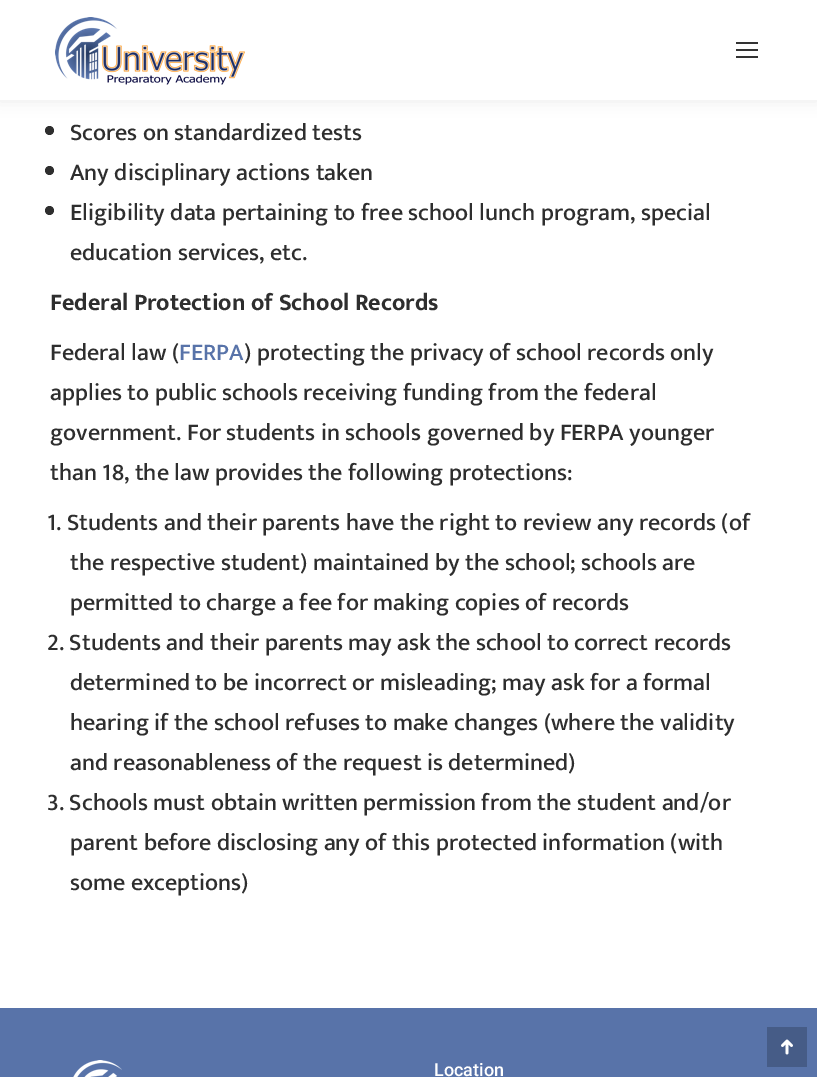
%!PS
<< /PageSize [817 1077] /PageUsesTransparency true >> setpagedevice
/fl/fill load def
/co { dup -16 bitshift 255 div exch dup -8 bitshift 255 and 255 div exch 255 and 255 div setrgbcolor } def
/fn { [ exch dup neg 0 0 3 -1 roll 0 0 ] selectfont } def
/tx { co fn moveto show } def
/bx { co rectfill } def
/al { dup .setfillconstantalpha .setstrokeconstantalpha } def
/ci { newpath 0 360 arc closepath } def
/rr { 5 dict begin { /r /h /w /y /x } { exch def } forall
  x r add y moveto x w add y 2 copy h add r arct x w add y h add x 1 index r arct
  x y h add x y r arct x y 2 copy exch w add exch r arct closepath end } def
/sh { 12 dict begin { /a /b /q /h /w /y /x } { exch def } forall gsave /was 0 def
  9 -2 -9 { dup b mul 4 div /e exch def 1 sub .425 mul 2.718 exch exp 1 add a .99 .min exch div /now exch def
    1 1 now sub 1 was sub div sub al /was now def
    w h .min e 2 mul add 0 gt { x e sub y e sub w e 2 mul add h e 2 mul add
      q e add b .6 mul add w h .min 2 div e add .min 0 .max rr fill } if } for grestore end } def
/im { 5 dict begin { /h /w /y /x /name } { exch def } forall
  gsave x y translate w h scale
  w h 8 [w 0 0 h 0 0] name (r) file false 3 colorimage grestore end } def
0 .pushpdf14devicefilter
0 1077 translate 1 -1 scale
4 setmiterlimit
0 0 817 1077 16#FFFFFF bx
16#000000 co
-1 -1 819 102 0 7.5 .07 sh
0 0 817 100 16#FFFFFF bx
(media/1.raw) 55 17 190 68 im
736 42 22 2 16#333333 bx
736 49 22 2 16#333333 bx
736 56 22 2 16#333333 bx
16#2E2E2E co
49.5 130.5 4.5 ci fl
49.5 170.5 4.5 ci fl
49.5 210.5 4.5 ci fl
0 1008 817 69 16#5873A9 bx
767 1027 40 40 16#465C87 bx
(media/2.raw) 781 1039 12 16 im
(media/3.raw) 73 1060 49 17 im
(Scores on standardized tests) 70 140 /Mukta-Medium 24 16#2E2E2E tx
(Any disciplinary actions taken) 70 180 /Mukta-Medium 24 16#2E2E2E tx
(Eligibility data pertaining to free school lunch program, special) 70 220 /Mukta-Medium 24 16#2E2E2E tx
(education services, etc.) 70 260 /Mukta-Medium 24 16#2E2E2E tx
(Federal Protection of School Records) 50 310 /Mukta-Bold 24 16#2E2E2E tx
(Federal law \() 50 360 /Mukta-Medium 24 16#2E2E2E tx
(FERPA) 179 360 /Mukta-Medium 24 16#5873A9 tx
(\) protecting the privacy of school records only) 244 360 /Mukta-Medium 24 16#2E2E2E tx
(applies to public schools receiving funding from the federal) 50 400 /Mukta-Medium 24 16#2E2E2E tx
(government. For students in schools governed by FERPA younger) 50 440 /Mukta-Medium 24 16#2E2E2E tx
(than 18, the law provides the following protections:) 50 480 /Mukta-Medium 24 16#2E2E2E tx
(1. Students and their parents have the right to review any records \(of) 47 530 /Mukta-Medium 24 16#2E2E2E tx
(the respective student\) maintained by the school; schools are) 70 570 /Mukta-Medium 24 16#2E2E2E tx
(permitted to charge a fee for making copies of records) 70 610 /Mukta-Medium 24 16#2E2E2E tx
(2. Students and their parents may ask the school to correct records) 47 650 /Mukta-Medium 24 16#2E2E2E tx
(determined to be incorrect or misleading; may ask for a formal) 70 690 /Mukta-Medium 24 16#2E2E2E tx
(hearing if the school refuses to make changes \(where the validity) 70 730 /Mukta-Medium 24 16#2E2E2E tx
(and reasonableness of the request is determined\)) 70 770 /Mukta-Medium 24 16#2E2E2E tx
(3. Schools must obtain written permission from the student and/or) 47 810 /Mukta-Medium 24 16#2E2E2E tx
(parent before disclosing any of this protected information \(with) 70 850 /Mukta-Medium 24 16#2E2E2E tx
(some exceptions\)) 70 890 /Mukta-Medium 24 16#2E2E2E tx
(Location) 434 1076 /Roboto-Medium 18 16#FFFFFF tx
.poppdf14devicefilter showpage
